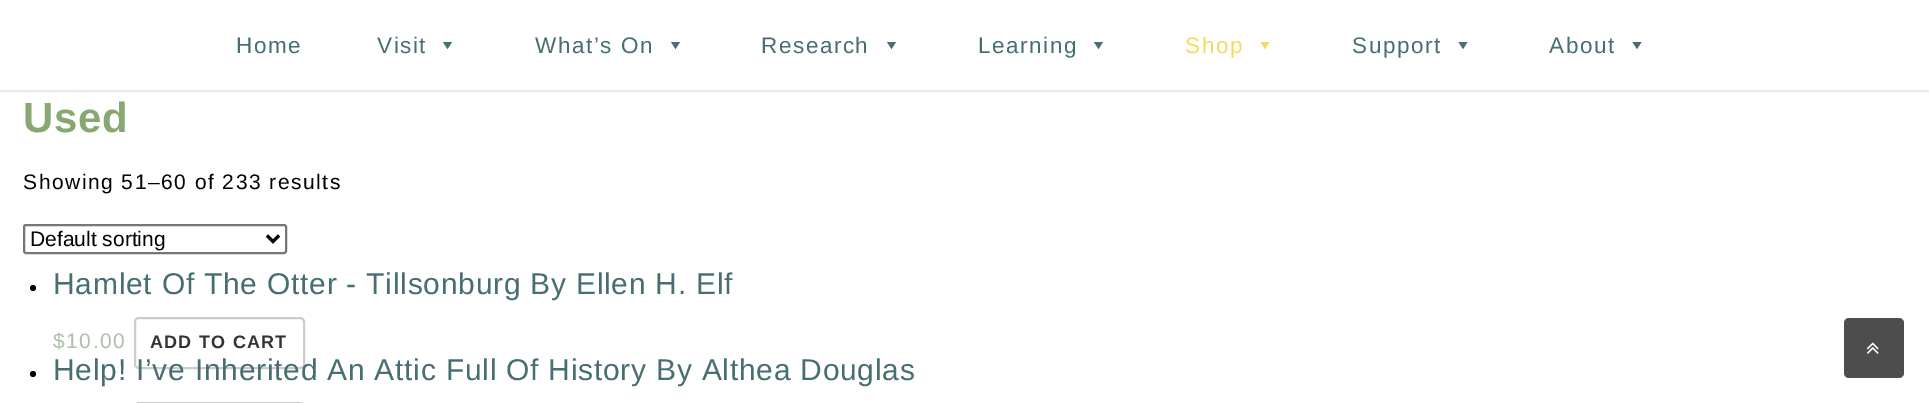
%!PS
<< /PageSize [1929 403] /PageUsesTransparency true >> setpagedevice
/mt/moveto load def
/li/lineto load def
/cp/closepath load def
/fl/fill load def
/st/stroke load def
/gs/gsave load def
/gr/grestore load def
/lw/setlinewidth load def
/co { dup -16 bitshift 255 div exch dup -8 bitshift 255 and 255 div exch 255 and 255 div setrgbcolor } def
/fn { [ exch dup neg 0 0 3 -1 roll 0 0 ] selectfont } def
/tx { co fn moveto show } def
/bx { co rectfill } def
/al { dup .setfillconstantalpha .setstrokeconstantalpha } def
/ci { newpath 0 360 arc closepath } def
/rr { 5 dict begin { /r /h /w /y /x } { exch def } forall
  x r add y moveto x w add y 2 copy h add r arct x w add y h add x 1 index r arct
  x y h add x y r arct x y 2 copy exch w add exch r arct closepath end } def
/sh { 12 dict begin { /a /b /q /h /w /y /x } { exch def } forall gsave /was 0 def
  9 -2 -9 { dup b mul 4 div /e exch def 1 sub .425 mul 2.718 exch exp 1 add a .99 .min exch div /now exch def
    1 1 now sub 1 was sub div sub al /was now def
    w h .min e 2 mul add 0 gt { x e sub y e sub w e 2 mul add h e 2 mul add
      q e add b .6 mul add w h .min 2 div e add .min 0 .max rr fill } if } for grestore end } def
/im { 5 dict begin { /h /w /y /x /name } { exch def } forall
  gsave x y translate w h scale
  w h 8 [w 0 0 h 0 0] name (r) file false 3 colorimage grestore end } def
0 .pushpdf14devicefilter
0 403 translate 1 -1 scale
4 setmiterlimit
0 0 1929 403 16#FFFFFF bx
gs
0 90 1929 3 rectclip
16#000000 co
0 2 1929 90 0 1.5 .1 sh
gr
16#476F73 co
452 42 mt 447.5 49 li 443 42 li cp fl
680 42 mt 675.5 49 li 671 42 li cp fl
896 42 mt 891.5 49 li 887 42 li cp fl
1103 42 mt 1098.5 49 li 1094 42 li cp fl
16#F7D95F co
1269.5 42 mt 1265 49 li 1260.5 42 li cp fl
16#476F73 co
1467.5 42 mt 1463 49 li 1458.5 42 li cp fl
1641.5 42 mt 1637 49 li 1632.5 42 li cp fl
16#767676 co
2 lw
24 225 262 28 2 rr st
16#000000 co
3 lw
267 235.5 mt 273 241.5 li 279 235.5 li st
33 288 3 ci fl
16#CCCCCC co
2 lw
135 318 169 50 4 rr st
16#000000 co
33 374 3 ci fl
16#CCCCCC co
135 403 169 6 4 rr st
16#4D4D4D co
1844 318 60 60 5 rr fl
(media/1.raw) 1866 342 13 12 im
/LiberationSans-Regular 22.5 fn
16#476F73 co
236 53 mt 1.5 0 (Home) ashow
377 53 mt 1.5 0 (Visit) ashow
535 53 mt 1.5 0 (What’s On) ashow
761 53 mt 1.5 0 (Research) ashow
978 53 mt 1.5 0 (Learning) ashow
16#F7D95F co
1185 53 mt 1.5 0 (Shop) ashow
16#476F73 co
1352 53 mt 1.5 0 (Support) ashow
1549 53 mt 1.5 0 (About) ashow
/LiberationSans-Bold 42 fn
16#89A871 co
23 132 mt .75 0 (Used) ashow
/LiberationSans-Regular 21 fn
16#000000 co
23 189 mt 1.5 0 (Showing 51–60 of 233 results) ashow
(Default sorting) 30 246 /LiberationSans-Regular 21 16#000000 tx
/LiberationSans-Regular 30 fn
16#476F73 co
53 294 mt .75 0 (Hamlet Of The Otter - Tillsonburg By Ellen H. Elf) ashow
/LiberationSans-Regular 21 fn
16#AAC0AA co
53 348 mt 1.5 0 ($10.00) ashow
/LiberationSans-Bold 18 fn
16#333333 co
150 348 mt 1.25 0 (ADD TO CART) ashow
/LiberationSans-Regular 30 fn
16#476F73 co
53 380 mt .75 0 (Help! I’ve Inherited An Attic Full Of History By Althea Douglas) ashow
.poppdf14devicefilter showpage
